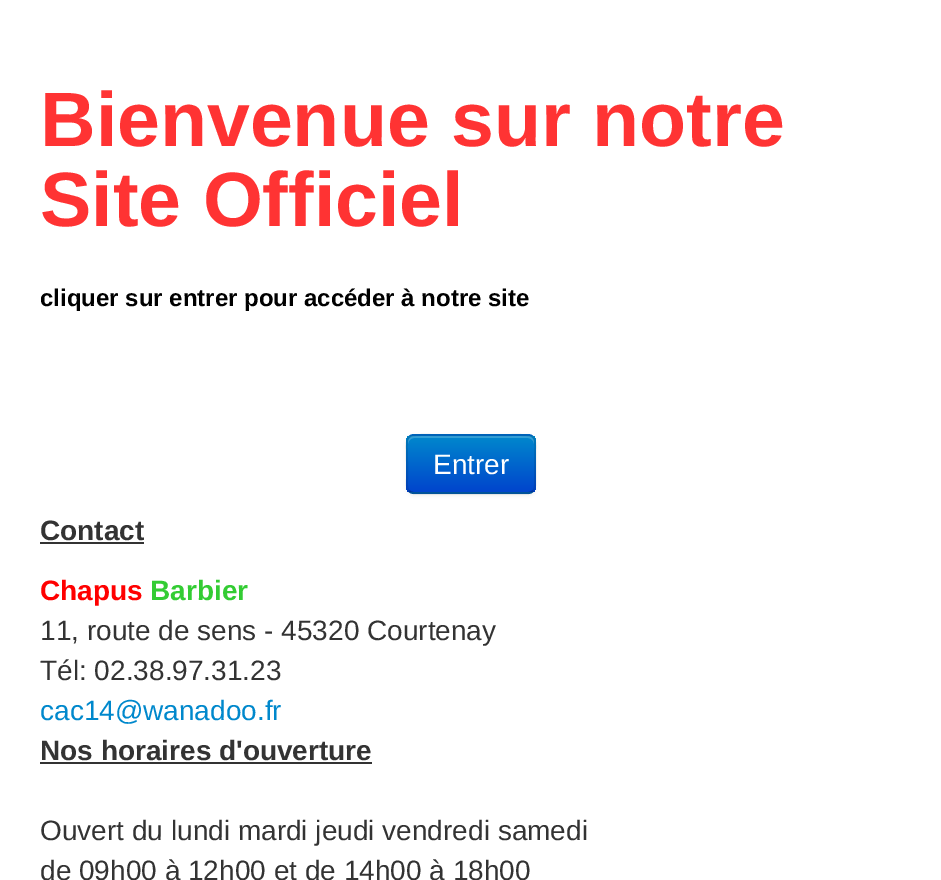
%!PS
<< /PageSize [941 880] /PageUsesTransparency true >> setpagedevice
/mt/moveto load def
/li/lineto load def
/ct/curveto load def
/cp/closepath load def
/fl/fill load def
/st/stroke load def
/gs/gsave load def
/gr/grestore load def
/lw/setlinewidth load def
/co { dup -16 bitshift 255 div exch dup -8 bitshift 255 and 255 div exch 255 and 255 div setrgbcolor } def
/fn { [ exch dup neg 0 0 3 -1 roll 0 0 ] selectfont } def
/tx { co fn moveto show } def
/bx { co rectfill } def
/al { dup .setfillconstantalpha .setstrokeconstantalpha } def
/rr { 5 dict begin { /r /h /w /y /x } { exch def } forall
  x r add y moveto x w add y 2 copy h add r arct x w add y h add x 1 index r arct
  x y h add x y r arct x y 2 copy exch w add exch r arct closepath end } def
/sh { 12 dict begin { /a /b /q /h /w /y /x } { exch def } forall gsave /was 0 def
  9 -2 -9 { dup b mul 4 div /e exch def 1 sub .425 mul 2.718 exch exp 1 add a .99 .min exch div /now exch def
    1 1 now sub 1 was sub div sub al /was now def
    w h .min e 2 mul add 0 gt { x e sub y e sub w e 2 mul add h e 2 mul add
      q e add b .6 mul add w h .min 2 div e add .min 0 .max rr fill } if } for grestore end } def
0 .pushpdf14devicefilter
0 880 translate 1 -1 scale
4 setmiterlimit
0 0 941 880 16#FFFFFF bx
16#000000 co
406 436 130 60 8 2 .05 sh
16#006DCC co
406 434 130 60 8 rr fl
gs
406 434 130 60 8 rr clip newpath
gs 406 436 mt 536 436 li 536 492 li 406 492 li cp clip newpath
<< /ShadingType 2 /ColorSpace /DeviceRGB /Coords [471 436 471 492] /Extend [true true] /Function << /FunctionType 2 /Domain [0 1] /C0 [0 .533 .8] /C1 [0 .267 .8] /N 1 >> >> shfill gr
gr
0.2 al
16#FFFFFF co
414 438 mt 528 438 li 531 438 534 441 534 444 ct 534 442 li 534 439 531 436 528 436 ct 414 436 li 411 436 408 439 408 442 ct 408 444 li 408 441 411 438 414 438 ct cp fl
0.25 al
16#000000 co
2 lw
533 491 mt 531.5 492.5 530 493 528 493 ct 414 493 li 412 493 410.5 492.5 409 491 ct st
0.1 al
409 491 mt 406 488 407 482.5 407 478.5 ct 407 464 li 407 432.5 402 435 433 435 ct 509 435 li 540 435 535 432.5 535 464 ct 535 478.5 li 535 482.5 536 488 533 491 ct st
1 al
40 542 104 2 16#333333 bx
40 762 332 2 16#333333 bx
(Bienvenue sur notre) 40 146 /LiberationSans-Bold 77 16#FF3333 tx
(Site Officiel) 40 226 /LiberationSans-Bold 77 16#FF3333 tx
(cliquer sur entrer pour accéder à notre site) 40 306 /LiberationSans-Bold 24 16#000000 tx
(Entrer) 433 474 /LiberationSans-Regular 28 16#FFFFFF tx
(Contact) 40 540 /LiberationSans-Bold 28 16#333333 tx
(Chapus) 40 600 /LiberationSans-Bold 28 16#FF0000 tx
(Barbier) 150 600 /LiberationSans-Bold 28 16#33CC33 tx
(11, route de sens - 45320 Courtenay) 40 640 /LiberationSans-Regular 28 16#333333 tx
(Tél: 02.38.97.31.23) 40 680 /LiberationSans-Regular 28 16#333333 tx
(cac14@wanadoo.fr) 40 720 /LiberationSans-Regular 28 16#0088CC tx
(Nos horaires d'ouverture) 40 760 /LiberationSans-Bold 28 16#333333 tx
(Ouvert du lundi mardi jeudi vendredi samedi) 40 840 /LiberationSans-Regular 28 16#333333 tx
(de 09h00 à 12h00 et de 14h00 à 18h00) 40 880 /LiberationSans-Regular 28 16#333333 tx
.poppdf14devicefilter showpage
